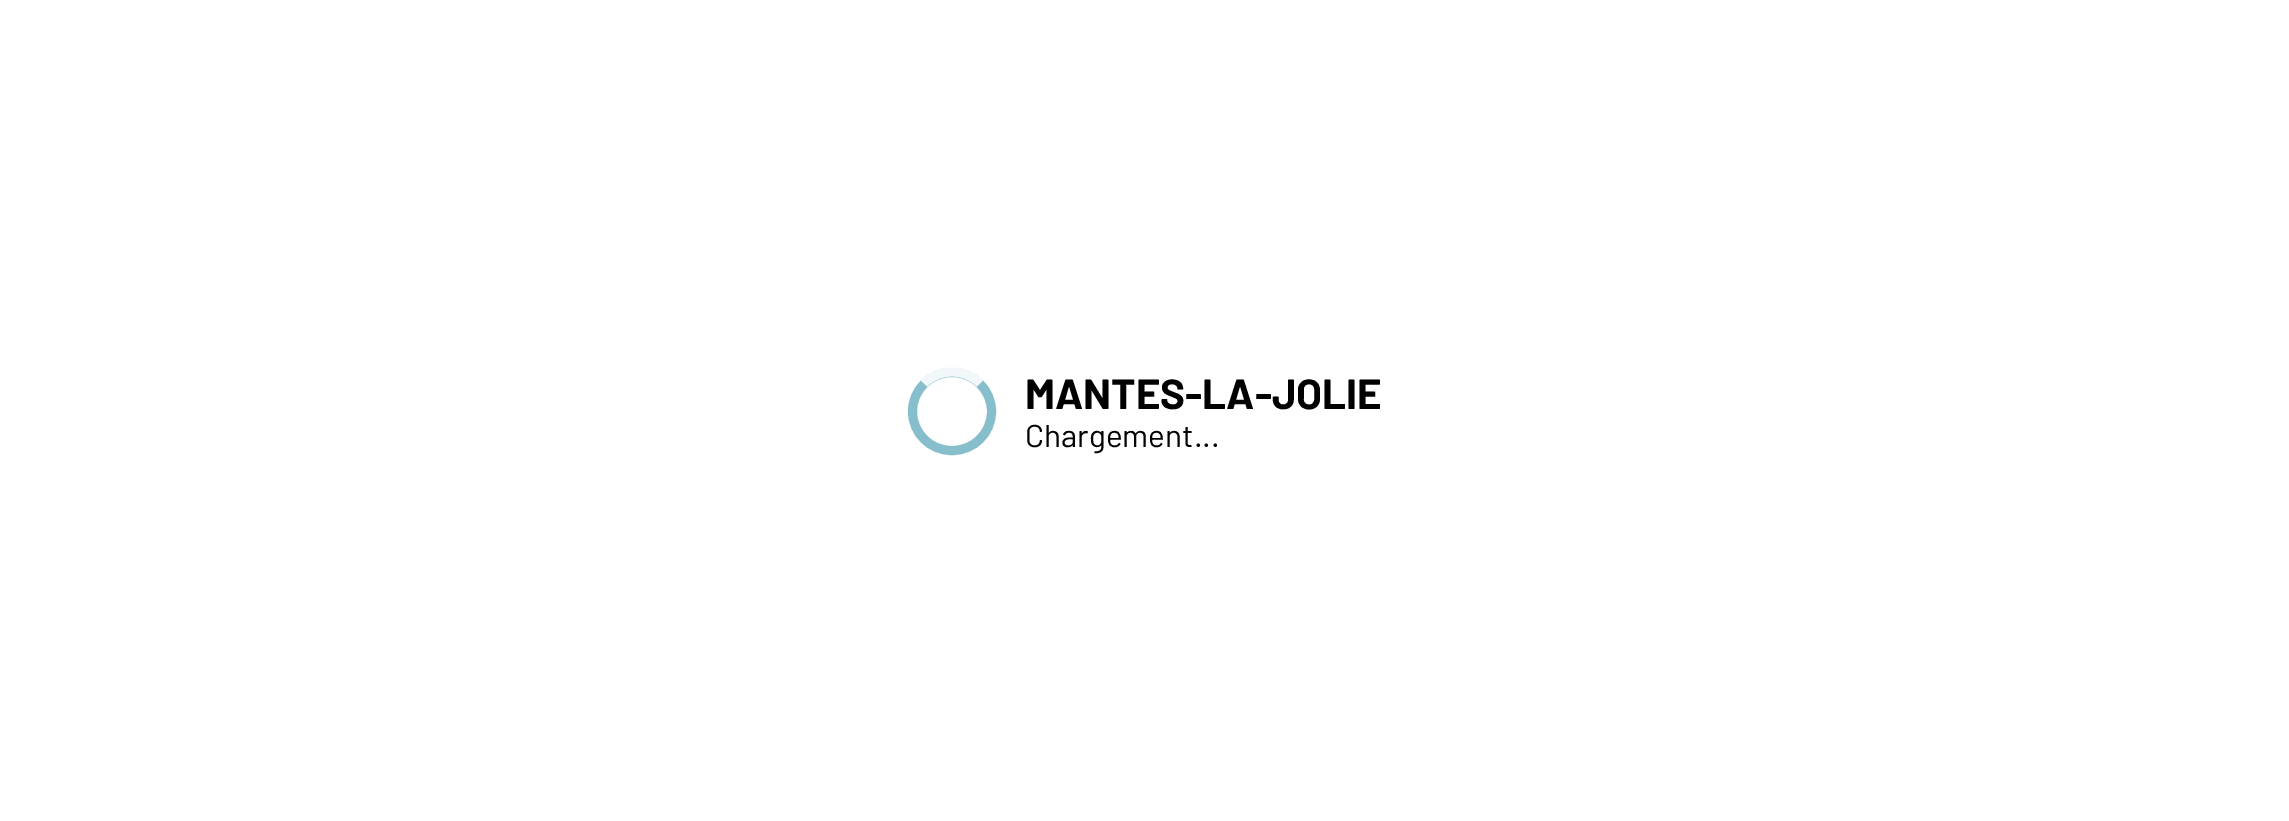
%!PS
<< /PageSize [2289 821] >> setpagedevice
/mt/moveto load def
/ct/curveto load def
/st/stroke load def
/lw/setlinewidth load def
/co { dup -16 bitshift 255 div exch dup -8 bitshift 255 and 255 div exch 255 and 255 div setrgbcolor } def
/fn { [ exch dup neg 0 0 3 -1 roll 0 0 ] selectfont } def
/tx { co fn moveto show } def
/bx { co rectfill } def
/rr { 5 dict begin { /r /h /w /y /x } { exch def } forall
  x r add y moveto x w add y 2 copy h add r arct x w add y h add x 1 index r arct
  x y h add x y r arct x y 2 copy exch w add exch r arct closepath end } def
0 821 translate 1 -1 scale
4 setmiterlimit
0 0 2289 821 16#FFFFFF bx
16#87BECB co
9 lw
912.5 372.5 79 78 39 rr st
16#F2F8F9 co
8.8 lw
924 383.5 mt 939.5 368 964.5 368 980 383.5 ct st
(MANTES-LA-JOLIE) 1025 409 /Barlow-Bold 42 16#000000 tx
(Chargement...) 1025 447 /Barlow-Regular 31.5 16#000000 tx
showpage
